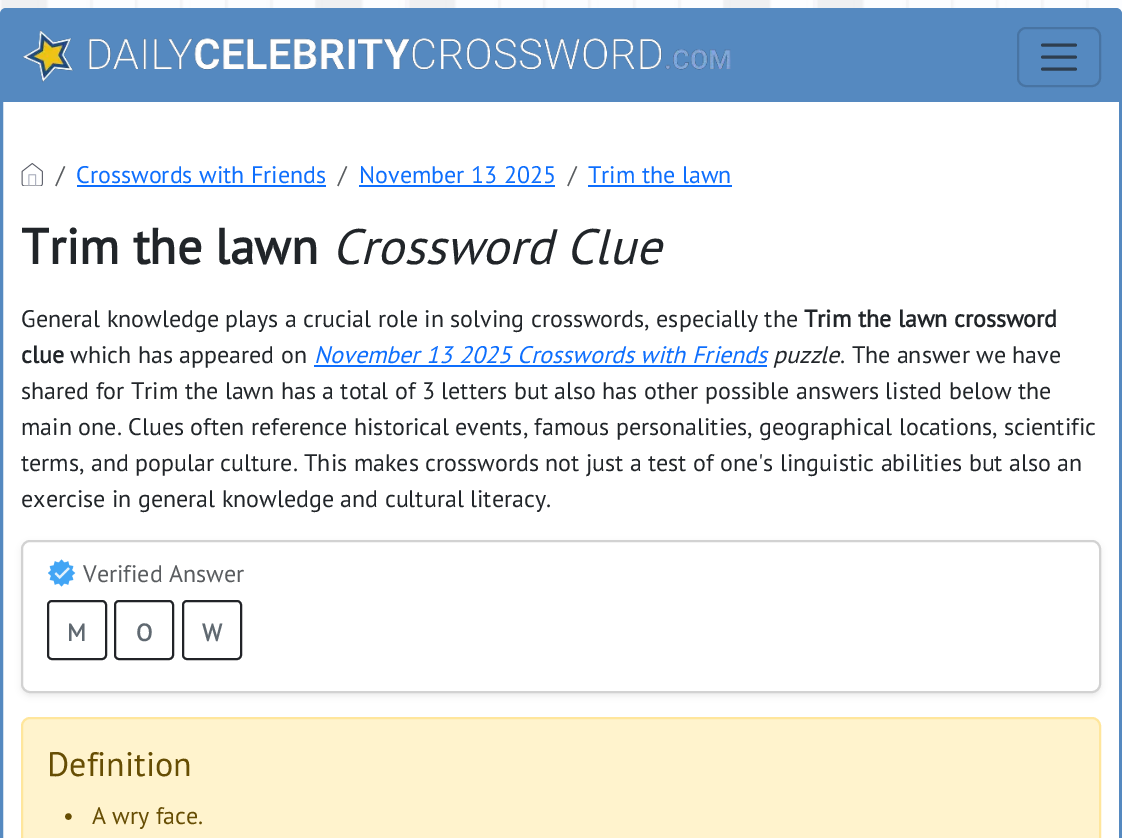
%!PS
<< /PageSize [1122 838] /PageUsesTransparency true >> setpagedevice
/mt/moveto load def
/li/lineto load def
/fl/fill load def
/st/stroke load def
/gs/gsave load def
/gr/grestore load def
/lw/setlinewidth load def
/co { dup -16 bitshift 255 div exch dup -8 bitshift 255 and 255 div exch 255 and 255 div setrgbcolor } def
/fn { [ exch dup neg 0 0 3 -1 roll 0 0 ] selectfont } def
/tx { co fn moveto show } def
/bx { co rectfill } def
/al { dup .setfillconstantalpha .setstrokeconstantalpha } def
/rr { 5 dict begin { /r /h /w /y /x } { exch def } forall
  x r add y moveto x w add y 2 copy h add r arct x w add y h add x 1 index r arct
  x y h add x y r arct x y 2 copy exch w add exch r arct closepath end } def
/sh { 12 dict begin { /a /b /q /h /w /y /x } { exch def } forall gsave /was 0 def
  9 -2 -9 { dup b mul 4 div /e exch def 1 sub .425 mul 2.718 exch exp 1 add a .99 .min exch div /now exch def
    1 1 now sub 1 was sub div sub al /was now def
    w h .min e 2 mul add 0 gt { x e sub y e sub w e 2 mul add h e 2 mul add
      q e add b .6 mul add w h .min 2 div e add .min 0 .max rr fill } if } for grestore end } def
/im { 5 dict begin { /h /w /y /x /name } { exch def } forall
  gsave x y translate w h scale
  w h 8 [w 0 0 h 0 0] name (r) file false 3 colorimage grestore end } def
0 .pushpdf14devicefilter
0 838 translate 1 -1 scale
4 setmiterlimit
0 0 1122 838 16#FFFFFF bx
(media/1.raw) 0 0 1122 14 im
1.5 9.5 1119 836 4.5 rr gs fl gr
16#5589C0 co
3 lw
st
3 11 1116 91 16#5589C0 bx
(media/2.raw) 22 30 709 53 im
16#4874A3 co
2 lw
1018 28 82 58 8 rr st
16#2E3E4F co
3 lw
1 setlinecap
1042.5 45 mt 1075.5 45 li 1042.5 57 mt 1075.5 57 li 1042.5 69 mt 1075.5 69 li st
(media/3.raw) 21 163 22 23 im
77 185 249 2 16#0D6EFD bx
359 185 196 2 16#0D6EFD bx
588 185 144 2 16#0D6EFD bx
314 365 453 2 16#0D6EFD bx
16#000000 co
21 543 1080 153 9 3 .07 sh
16#FFFFFF co
22 541 1078 151 8 rr gs fl gr
16#D2D2D2 co
2 lw
0 setlinecap
st
(media/4.raw) 48 559 28 28 im
16#212327 co
48 601 58 58 4 rr st
115 601 58 58 4 rr st
183 601 58 58 4 rr st
16#FFF3CD co
22 718 1078 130 8 rr gs fl gr
16#FFE69C co
st
(/) 56 183 /PTSans-Regular 24 16#595C5F tx
(Crosswords with Friends) 76 183 /PTSans-Regular 24 16#0D6EFD tx
(/) 338 183 /PTSans-Regular 24 16#595C5F tx
(November 13 2025) 359 183 /PTSans-Regular 24 16#0D6EFD tx
(/) 568 183 /PTSans-Regular 24 16#595C5F tx
(Trim the lawn) 588 183 /PTSans-Regular 24 16#0D6EFD tx
(Trim the lawn) 21 264 /PTSans-Bold 49.75 16#212529 tx
(Crossword Clue) 332 264 /PTSans-Italic 49.75 16#212529 tx
(General knowledge plays a crucial role in solving crosswords, especially the) 21 327 /PTSans-Regular 24 16#212529 tx
(Trim the lawn crossword) 804 327 /PTSans-Bold 24 16#212529 tx
(clue) 21 363 /PTSans-Bold 24 16#212529 tx
(which has appeared on) 70 363 /PTSans-Regular 24 16#212529 tx
(November 13 2025 Crosswords with Friends) 314 363 /PTSans-Italic 24 16#0D6EFD tx
(puzzle) 773 363 /PTSans-Italic 24 16#212529 tx
(. The answer we have) 840 363 /PTSans-Regular 24 16#212529 tx
(shared for Trim the lawn has a total of 3 letters but also has other possible answers listed below the) 21 399 /PTSans-Regular 24 16#212529 tx
(main one. Clues often reference historical events, famous personalities, geographical locations, scientific) 21 435 /PTSans-Regular 24 16#212529 tx
(terms, and popular culture. This makes crosswords not just a test of one's linguistic abilities but also an) 21 471 /PTSans-Regular 24 16#212529 tx
(exercise in general knowledge and cultural literacy.) 21 507 /PTSans-Regular 24 16#212529 tx
(Verified Answer) 83 582 /PTSans-Regular 24 16#595C5F tx
(M) 67 641 /PTSans-Bold 24 16#606971 tx
(O) 136 641 /PTSans-Bold 24 16#606971 tx
(W) 202 641 /PTSans-Bold 24 16#606971 tx
(Definition) 47 776 /PTSans-Regular 34 16#664D03 tx
(•) 63 824 /PTSans-Regular 24 16#664D03 tx
(A wry face.) 92 824 /PTSans-Regular 24 16#664D03 tx
.poppdf14devicefilter showpage
